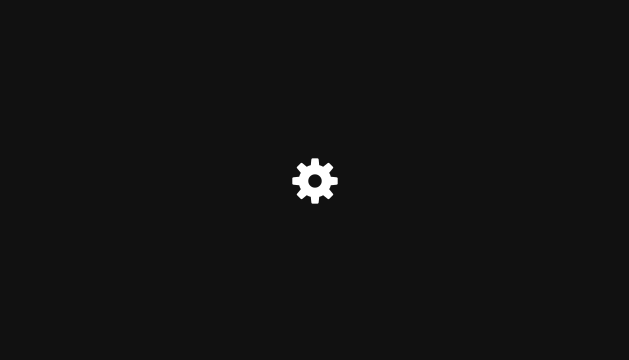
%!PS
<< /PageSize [629 360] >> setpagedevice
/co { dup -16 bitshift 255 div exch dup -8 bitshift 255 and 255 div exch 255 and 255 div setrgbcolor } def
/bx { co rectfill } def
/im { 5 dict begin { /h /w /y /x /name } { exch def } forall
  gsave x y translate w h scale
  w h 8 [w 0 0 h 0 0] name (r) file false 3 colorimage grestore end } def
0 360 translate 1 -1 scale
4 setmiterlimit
0 0 629 360 16#111111 bx
(media/1.raw) 292 158 46 46 im
showpage
